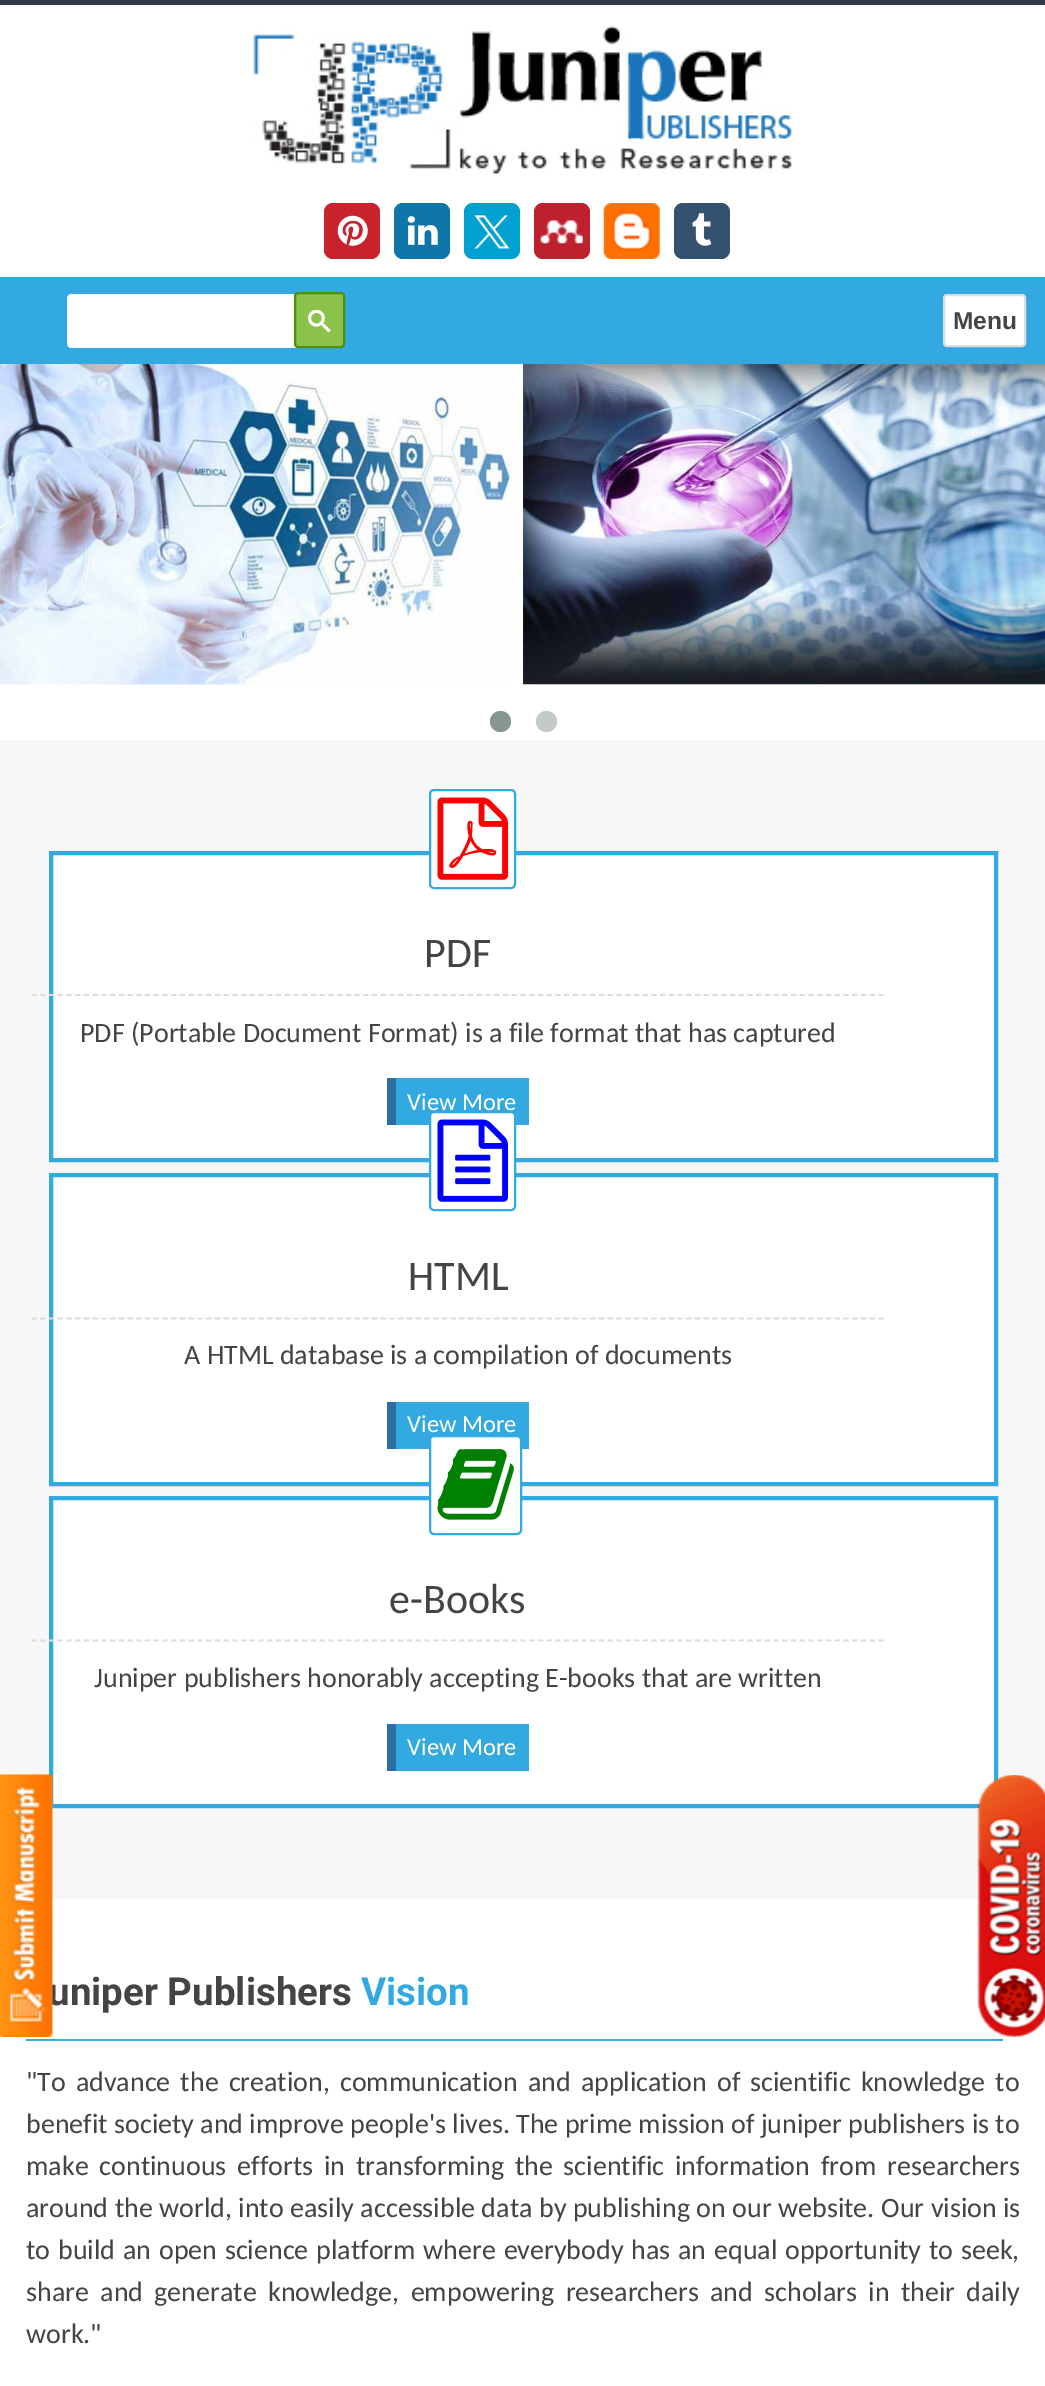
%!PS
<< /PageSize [1045 2386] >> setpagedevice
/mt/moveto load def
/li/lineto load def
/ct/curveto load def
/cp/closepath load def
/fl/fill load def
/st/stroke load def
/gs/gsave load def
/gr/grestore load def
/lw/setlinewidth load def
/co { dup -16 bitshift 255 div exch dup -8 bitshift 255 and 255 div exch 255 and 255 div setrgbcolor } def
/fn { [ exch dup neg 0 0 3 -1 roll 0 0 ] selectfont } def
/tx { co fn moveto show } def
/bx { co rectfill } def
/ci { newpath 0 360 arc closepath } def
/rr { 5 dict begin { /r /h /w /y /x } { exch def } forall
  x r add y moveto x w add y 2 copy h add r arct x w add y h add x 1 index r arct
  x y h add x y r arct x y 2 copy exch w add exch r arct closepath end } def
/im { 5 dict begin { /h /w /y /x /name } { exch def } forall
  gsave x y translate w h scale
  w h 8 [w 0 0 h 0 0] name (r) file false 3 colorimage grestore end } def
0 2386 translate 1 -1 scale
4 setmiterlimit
0 0 1045 2386 16#FFFFFF bx
0 0 1045 5 16#323A45 bx
(media/1.raw) 253 26 539 148 im
16#C8232C co
324 203 56 56 9 rr fl
(media/2.raw) 337 215 31 31 im
16#0E76A8 co
394 203 56 56 9 rr fl
(media/3.raw) 407 216 31 29 im
16#00A0D1 co
464 203 56 56 9 rr fl
(media/4.raw) 474 215 36 34 im
16#BE212E co
534 203 56 56 9 rr fl
(media/5.raw) 540 220 43 24 im
(media/6.raw) 603 203 57 56 im
16#34526F co
674 203 56 56 9 rr fl
(media/7.raw) 692 213 20 33 im
0 277 1045 87 16#32AAE1 bx
16#FFFFFF co
72 294 mt 296 294 li 296 348 li 72 348 li 69 348 67 346 67 343 ct 67 299 li 67 296 69 294 72 294 ct cp fl
16#8BC34A co
295 293 49 54 3 rr gs fl gr
16#518E0B co
2 lw
st
(media/8.raw) 308 310 23 23 im
16#FFFFFF co
944 295 81 51 3 rr gs fl gr
16#DDDDDD co
st
(media/9.raw) 0 364 514 321 im
(media/10.raw) 523 364 522 321 im
16#869791 co
500.5 721.5 10.5 ci fl
16#C3CBC8 co
546.5 721.5 10.5 ci fl
0 740 1045 1159 16#F7F7F7 bx
16#FFFFFF co
51 853 mt 996 853 li 996 1160 li 51 1160 li cp gs fl gr
16#32AAE1 co
4 lw
st
16#FFFFFF co
430 790 85 98 4 rr gs fl gr
16#32AAE1 co
2 lw
st
(media/11.raw) 437 797 71 83 im
16#DDDDDD co
1.8 lw
[5.25 3.48] 0 setdash
31.5 995 mt 884 995 li st
396 1078 133 47 16#32AAE1 bx
387 1078 9 47 16#2E6DA4 bx
16#FFFFFF co
51 1175 mt 996 1175 li 996 1484 li 51 1484 li cp gs fl gr
16#32AAE1 co
4 lw
[] 0 setdash
st
16#FFFFFF co
430 1112 85 98 4 rr gs fl gr
16#32AAE1 co
2 lw
st
(media/12.raw) 437 1119 71 83 im
16#DDDDDD co
1.8 lw
[5.25 3.48] 0 setdash
31.5 1318.5 mt 884 1318.5 li st
396 1402 133 47 16#32AAE1 bx
387 1402 9 47 16#2E6DA4 bx
16#FFFFFF co
51 1498 mt 996 1498 li 996 1806 li 51 1806 li cp gs fl gr
16#32AAE1 co
4 lw
[] 0 setdash
st
16#FFFFFF co
430 1436 91 98 4 rr gs fl gr
16#32AAE1 co
2 lw
st
(media/13.raw) 437 1449 77 71 im
16#DDDDDD co
1.8 lw
[5.25 3.48] 0 setdash
31.5 1640.5 mt 884 1640.5 li st
396 1724 133 47 16#32AAE1 bx
387 1724 9 47 16#2E6DA4 bx
(media/14.raw) 977 1775 68 262 im
26 2039 977 2 16#32AAE1 bx
(Menu) 953 329 /LiberationSans-Bold 24.5 16#444444 tx
(PDF) 424 967 /Carlito-Regular 42 16#444444 tx
(PDF \(Portable Document Format\) is a file format that has captured) 80 1042 /Carlito-Regular 28 16#444444 tx
(View More) 407 1110 /Carlito-Regular 24.5 16#FFFFFF tx
(HTML) 408 1290 /Carlito-Regular 42 16#444444 tx
(A HTML database is a compilation of documents) 184 1364 /Carlito-Regular 28 16#444444 tx
(View More) 407 1432 /Carlito-Regular 24.5 16#FFFFFF tx
(e-Books) 389 1613 /Carlito-Regular 42 16#444444 tx
(Juniper publishers honorably accepting E-books that are written) 94 1687 /Carlito-Regular 28 16#444444 tx
(View More) 407 1755 /Carlito-Regular 24.5 16#FFFFFF tx
(uniper Publishers) 48 2005 /Roboto-Bold 38.5 16#444444 tx
(Vision) 361 2005 /Roboto-Bold 38.5 16#32AAE1 tx
/Carlito-Regular 28 fn
16#444444 co
26 2091 mt 3.75 0 32 ("To advance the creation, communication and application of scientific knowledge to) widthshow
(benefit society and improve people's lives. The prime mission of juniper publishers is to) 26 2133 /Carlito-Regular 28 16#444444 tx
26 2175 mt 4.5 0 32 (make continuous efforts in transforming the scientific information from researchers) widthshow
26 2217 mt .2 0 32 (around the world, into easily accessible data by publishing on our website. Our vision is) widthshow
26 2259 mt 1.5 0 32 (to build an open science platform where everybody has an equal opportunity to seek,) widthshow
26 2301 mt 5 0 32 (share and generate knowledge, empowering researchers and scholars in their daily) widthshow
(work.") 26 2343 /Carlito-Regular 28 16#444444 tx
(media/15.raw) 0 1774 53 263 im
showpage
